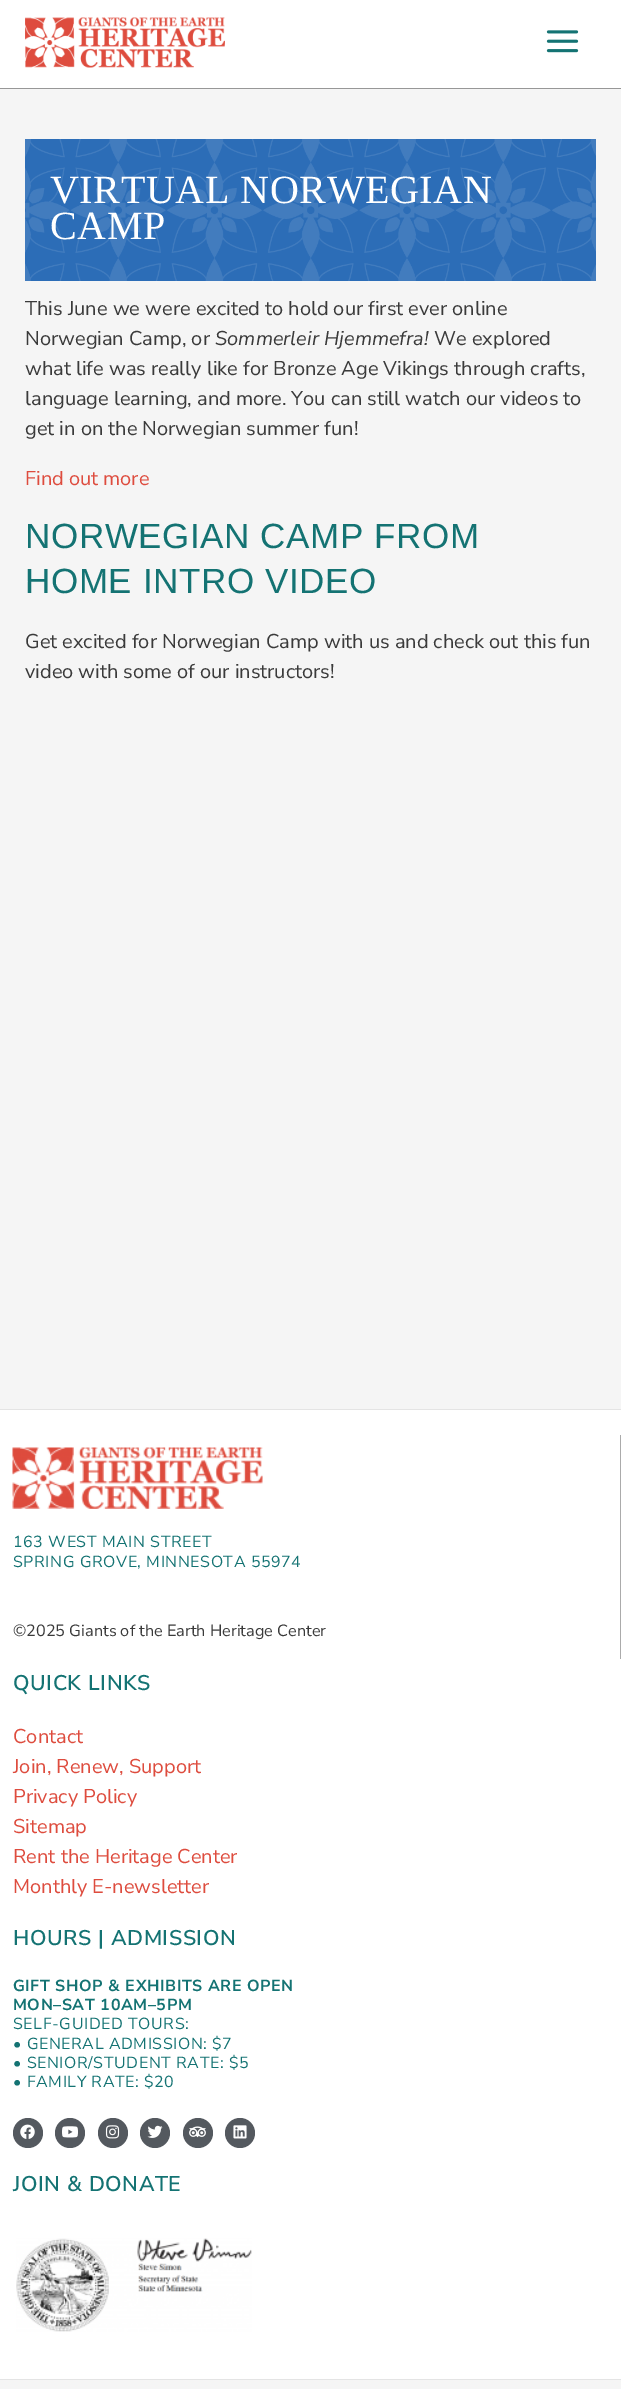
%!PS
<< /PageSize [621 2389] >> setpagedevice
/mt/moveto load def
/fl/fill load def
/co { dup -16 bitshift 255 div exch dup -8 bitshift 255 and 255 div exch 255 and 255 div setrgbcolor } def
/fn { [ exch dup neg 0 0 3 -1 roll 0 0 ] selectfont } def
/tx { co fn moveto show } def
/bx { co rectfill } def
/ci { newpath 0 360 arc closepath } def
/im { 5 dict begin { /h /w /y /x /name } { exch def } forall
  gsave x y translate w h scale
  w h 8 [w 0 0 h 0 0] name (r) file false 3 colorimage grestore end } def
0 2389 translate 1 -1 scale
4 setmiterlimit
0 0 621 2389 16#F5F5F5 bx
0 0 621 88 16#FFFFFF bx
0 88 621 1 16#979797 bx
(media/1.raw) 25 17 200 51 im
(media/2.raw) 546 30 33 23 im
25 139 571 142 16#2C6DB7 bx
(media/3.raw) 25 139 571 142 im
0 1410 621 969 16#FFFFFF bx
0 1409 621 1 16#E4E4E4 bx
0 2379 621 1 16#E4E4E4 bx
620 1435 1 224 16#ABABAB bx
(media/4.raw) 12 1447 251 62 im
16#54595F co
28 2133 15 ci fl
(media/5.raw) 20 2124 15 15 im
70 2133 15 ci fl
(media/6.raw) 62 2126 16 12 im
113 2133 15 ci fl
(media/7.raw) 105 2125 15 14 im
155 2133 15 ci fl
(media/8.raw) 147 2125 16 13 im
198 2133 15 ci fl
(media/9.raw) 189 2126 17 12 im
240 2133 15 ci fl
(media/10.raw) 233 2125 14 14 im
(media/11.raw) 16 2238 236 94 im
/LiberationSerif-Regular 40 fn
16#FFFFFF co
50 203 mt .6 0 (VIRTUAL NORWEGIAN) ashow
50 239 mt .6 0 (CAMP) ashow
(This June we were excited to hold our first ever online) 25 315 /NunitoSans-Regular 20 16#3A3A3A tx
(Norwegian Camp, or) 25 345 /NunitoSans-Regular 20 16#3A3A3A tx
(Sommerleir Hjemmefra!) 215 345 /NunitoSans-Italic 20 16#3A3A3A tx
(We explored) 434 345 /NunitoSans-Regular 20 16#3A3A3A tx
(what life was really like for Bronze Age Vikings through crafts,) 25 375 /NunitoSans-Regular 20 16#3A3A3A tx
(language learning, and more. You can still watch our videos to) 25 405 /NunitoSans-Regular 20 16#3A3A3A tx
(get in on the Norwegian summer fun!) 25 435 /NunitoSans-Regular 20 16#3A3A3A tx
(Find out more) 25 485 /NunitoSans-Regular 20 16#DE4C3E tx
/LiberationSans-Regular 35 fn
16#147373 co
25 548 mt .6 0 (NORWEGIAN CAMP FROM) ashow
25 593 mt .6 0 (HOME INTRO VIDEO) ashow
(Get excited for Norwegian Camp with us and check out this fun) 25 648 /NunitoSans-Regular 20 16#3A3A3A tx
(video with some of our instructors!) 25 678 /NunitoSans-Regular 20 16#3A3A3A tx
/NunitoSans-Regular 16 fn
16#147373 co
13 1547 mt .6 0 (163 WEST MAIN STREET) ashow
13 1567 mt .6 0 (SPRING GROVE, MINNESOTA 55974) ashow
(©2025 Giants of the Earth Heritage Center) 13 1636 /NunitoSans-Regular 16.25 16#3A3A3A tx
/NunitoSans-SemiBold 21.25 fn
16#147373 co
13 1690 mt .6 0 (QUICK LINKS) ashow
(Contact) 13 1743 /NunitoSans-Regular 20 16#DE4C3E tx
(Join, Renew, Support) 13 1773 /NunitoSans-Regular 20 16#DE4C3E tx
(Privacy Policy) 13 1803 /NunitoSans-Regular 20 16#DE4C3E tx
(Sitemap) 13 1833 /NunitoSans-Regular 20 16#DE4C3E tx
(Rent the Heritage Center) 13 1863 /NunitoSans-Regular 20 16#DE4C3E tx
(Monthly E-newsletter) 13 1893 /NunitoSans-Regular 20 16#DE4C3E tx
/NunitoSans-SemiBold 21.25 fn
16#147373 co
13 1945 mt .6 0 (HOURS | ADMISSION) ashow
/NunitoSans-Bold 16 fn
13 1991 mt .6 0 (GIFT SHOP & EXHIBITS ARE OPEN) ashow
13 2010 mt .6 0 (MON–SAT 10AM–5PM) ashow
/NunitoSans-Regular 16 fn
13 2029 mt .6 0 (SELF-GUIDED TOURS:) ashow
13 2049 mt .6 0 (• GENERAL ADMISSION: $7) ashow
13 2068 mt .6 0 (• SENIOR/STUDENT RATE: $5) ashow
13 2087 mt .6 0 (• FAMILY RATE: $20) ashow
/NunitoSans-SemiBold 21.25 fn
13 2191 mt .6 0 (JOIN & DONATE) ashow
showpage
